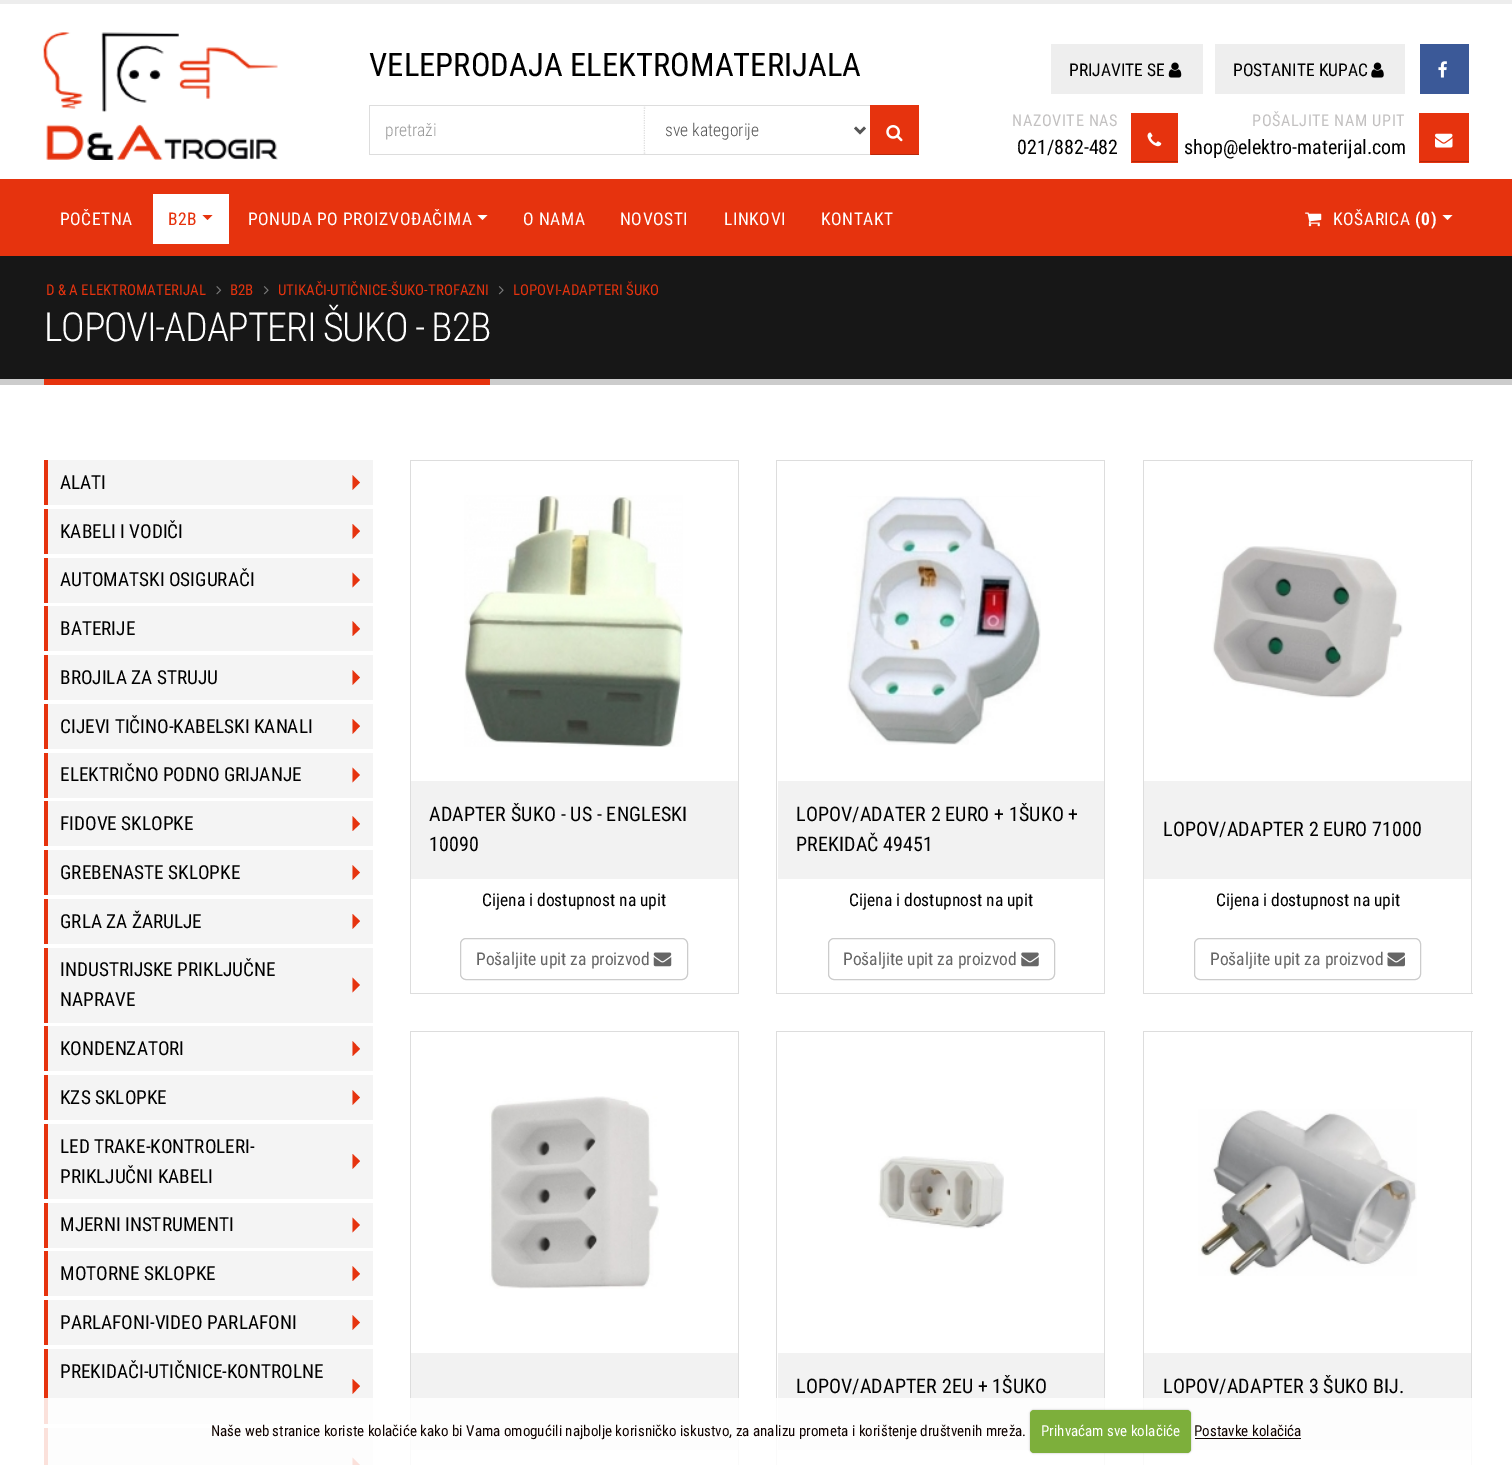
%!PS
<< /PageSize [1512 1465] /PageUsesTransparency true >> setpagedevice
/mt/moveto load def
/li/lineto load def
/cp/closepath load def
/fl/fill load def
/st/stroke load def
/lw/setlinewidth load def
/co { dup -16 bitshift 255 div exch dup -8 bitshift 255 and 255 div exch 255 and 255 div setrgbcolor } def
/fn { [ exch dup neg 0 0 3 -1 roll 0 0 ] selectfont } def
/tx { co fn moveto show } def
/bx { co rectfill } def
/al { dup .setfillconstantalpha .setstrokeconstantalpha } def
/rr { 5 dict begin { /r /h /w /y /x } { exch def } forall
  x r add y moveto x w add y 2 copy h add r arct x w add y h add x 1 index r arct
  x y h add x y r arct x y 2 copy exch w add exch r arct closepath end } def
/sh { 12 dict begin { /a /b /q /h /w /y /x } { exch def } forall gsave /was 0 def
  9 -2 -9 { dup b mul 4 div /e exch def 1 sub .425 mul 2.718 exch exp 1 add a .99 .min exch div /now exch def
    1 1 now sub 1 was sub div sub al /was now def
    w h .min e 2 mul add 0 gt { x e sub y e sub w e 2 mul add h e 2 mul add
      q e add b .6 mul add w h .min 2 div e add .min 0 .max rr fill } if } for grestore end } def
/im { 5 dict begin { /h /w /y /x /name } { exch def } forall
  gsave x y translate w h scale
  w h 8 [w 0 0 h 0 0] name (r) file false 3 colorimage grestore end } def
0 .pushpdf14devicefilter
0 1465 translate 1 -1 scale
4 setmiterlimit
0 0 1512 1465 16#FFFFFF bx
0 0 1512 4 16#EDEDED bx
(media/1.raw) 43 32 235 128 im
369 105 276 1 16#DDDDDD bx
1.2 lw
[1.25 1.25] 0 setdash
644.5 105 mt 644.5 155 li st
369 154 502 1 16#DDDDDD bx
369 105 1 50 16#DDDDDD bx
645 110 1 41 16#FFFFFF bx
645 105 226 1 16#DDDDDD bx
16#555555 co
2.5 lw
[] 0 setdash
855 127.5 mt 860 132.5 li 865 127.5 li st
871 105 48 49 16#E6330E bx
870 154 49 1 16#B6280B bx
870 105 1 50 16#E6330E bx
(media/2.raw) 886 125 17 17 im
1051 44 152 50 16#EEEEEE bx
(media/3.raw) 1168 62 14 16 im
1215 44 190 50 16#EEEEEE bx
(media/4.raw) 1371 62 13 16 im
1420 44 49 50 16#3B5998 bx
(media/5.raw) 1438 61 9 17 im
1132 113 46 50 16#E6330E bx
1131 161 47 1 16#B6280B bx
1131 113 1 50 16#E6330E bx
(media/6.raw) 1147 132 15 15 im
1420 113 49 50 16#E6330E bx
1419 161 50 1 16#B6280B bx
1419 113 1 50 16#E6330E bx
(media/7.raw) 1435 133 18 15 im
0 179 1512 77 16#E6330E bx
153 194 76 50 16#FFFFFF bx
16#E6330E co
202.5 215 mt 212.5 215 li 207.5 220 li cp fl
16#FFFFFF co
477.5 215 mt 487.5 215 li 482.5 220 li cp fl
(media/8.raw) 1305 212 17 15 im
1442.5 215 mt 1452.5 215 li 1447.5 220 li cp fl
0 256 1512 123 16#171717 bx
0 379 1512 6 16#CCCCCC bx
(media/9.raw) 216 286 6 9 im
(media/10.raw) 263 286 6 9 im
(media/10.raw) 498 286 6 9 im
44 379 446 6 16#E6330E bx
48 460 325 45 16#F4F4F4 bx
44 460 4 45 16#E6330E bx
352.5 490 mt 352.5 475 li 360 482.5 li cp fl
48 509 325 45 16#F4F4F4 bx
44 509 4 45 16#E6330E bx
352.5 539 mt 352.5 524 li 360 531 li cp fl
48 558 325 45 16#F4F4F4 bx
44 558 4 45 16#E6330E bx
352.5 587.5 mt 352.5 572.5 li 360 580 li cp fl
48 606 325 45 16#F4F4F4 bx
44 606 4 45 16#E6330E bx
352.5 636 mt 352.5 621 li 360 629 li cp fl
48 655 325 45 16#F4F4F4 bx
44 655 4 45 16#E6330E bx
352.5 685 mt 352.5 670 li 360 677.5 li cp fl
48 704 325 45 16#F4F4F4 bx
44 704 4 45 16#E6330E bx
352.5 734 mt 352.5 719 li 360 726 li cp fl
48 753 325 45 16#F4F4F4 bx
44 753 4 45 16#E6330E bx
352.5 782.5 mt 352.5 767.5 li 360 775 li cp fl
48 801 325 45 16#F4F4F4 bx
44 801 4 45 16#E6330E bx
352.5 831 mt 352.5 816 li 360 824 li cp fl
48 850 325 45 16#F4F4F4 bx
44 850 4 45 16#E6330E bx
352.5 880 mt 352.5 865 li 360 872.5 li cp fl
48 899 325 45 16#F4F4F4 bx
44 899 4 45 16#E6330E bx
352.5 929 mt 352.5 914 li 360 921 li cp fl
48 948 325 75 16#F4F4F4 bx
44 948 4 75 16#E6330E bx
352.5 992.5 mt 352.5 977.5 li 360 985 li cp fl
48 1026 325 45 16#F4F4F4 bx
44 1026 4 45 16#E6330E bx
352.5 1056 mt 352.5 1041 li 360 1049 li cp fl
48 1075 325 45 16#F4F4F4 bx
44 1075 4 45 16#E6330E bx
352.5 1105 mt 352.5 1090 li 360 1097.5 li cp fl
48 1124 325 75 16#F4F4F4 bx
44 1124 4 75 16#E6330E bx
352.5 1169 mt 352.5 1154 li 360 1161 li cp fl
48 1203 325 45 16#F4F4F4 bx
44 1203 4 45 16#E6330E bx
352.5 1232.5 mt 352.5 1217.5 li 360 1225 li cp fl
48 1251 325 45 16#F4F4F4 bx
44 1251 4 45 16#E6330E bx
352.5 1281 mt 352.5 1266 li 360 1274 li cp fl
48 1300 325 45 16#F4F4F4 bx
44 1300 4 45 16#E6330E bx
352.5 1330 mt 352.5 1315 li 360 1322.5 li cp fl
48 1349 325 75 16#F4F4F4 bx
44 1349 4 75 16#E6330E bx
352.5 1394 mt 352.5 1379 li 360 1386 li cp fl
48 1428 325 37 16#F4F4F4 bx
44 1428 4 37 16#E6330E bx
352.5 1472.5 mt 352.5 1457.5 li 360 1465 li cp fl
410 460 329 1 16#DDDDDD bx
738 460 1 321 16#DDDDDD bx
410 460 1 321 16#DDDDDD bx
(media/11.raw) 464 495 219 252 im
738 781 1 213 16#DDDDDD bx
410 993 329 1 16#DDDDDD bx
410 781 1 213 16#DDDDDD bx
411 781 327 98 16#F2F2F2 bx
16#CCCCCC co
1 lw
460.5 938.5 227 41 5.5 rr st
(media/12.raw) 653 952 19 15 im
776 460 329 1 16#DDDDDD bx
1104 460 1 321 16#DDDDDD bx
776 460 1 321 16#DDDDDD bx
(media/13.raw) 847 496 194 249 im
1104 781 1 213 16#DDDDDD bx
776 993 329 1 16#DDDDDD bx
776 781 1 213 16#DDDDDD bx
778 781 326 98 16#F2F2F2 bx
16#CCCCCC co
828.5 938.5 226 41 5.5 rr st
(media/14.raw) 1021 952 18 15 im
1143 460 330 1 16#DDDDDD bx
1471 460 1 321 16#DDDDDD bx
1143 460 1 321 16#DDDDDD bx
(media/15.raw) 1212 546 191 152 im
1471 781 1 213 16#DDDDDD bx
1143 993 330 1 16#DDDDDD bx
1143 781 1 213 16#DDDDDD bx
1144 781 327 98 16#F2F2F2 bx
16#CCCCCC co
1194.5 938.5 226 41 5.5 rr st
(media/16.raw) 1387 952 18 15 im
410 1031 329 1 16#DDDDDD bx
738 1031 1 322 16#DDDDDD bx
410 1031 1 322 16#DDDDDD bx
(media/17.raw) 489 1096 171 193 im
738 1353 1 112 16#DDDDDD bx
410 1353 1 112 16#DDDDDD bx
411 1353 327 97 16#F2F2F2 bx
776 1031 329 1 16#DDDDDD bx
1104 1031 1 322 16#DDDDDD bx
776 1031 1 322 16#DDDDDD bx
(media/18.raw) 878 1156 126 73 im
1104 1353 1 112 16#DDDDDD bx
776 1353 1 112 16#DDDDDD bx
778 1353 326 97 16#F2F2F2 bx
1143 1031 330 1 16#DDDDDD bx
1471 1031 1 322 16#DDDDDD bx
1143 1031 1 322 16#DDDDDD bx
(media/19.raw) 1198 1109 219 167 im
1471 1353 1 112 16#DDDDDD bx
1143 1353 1 112 16#DDDDDD bx
1144 1353 327 97 16#F2F2F2 bx
0.85 al
44 1398 1428 67 16#FFFFFF bx
1 al
16#000000 co
1030 1410 161 43 4 1 .25 sh
16#7DAF3B co
1030 1410 161 43 4 rr fl
1195 1438 106 1 16#110300 bx
/RobotoCondensed-Regular 32.5 fn
16#000000 co
369 76 mt .1 0 (VELEPRODAJA ELEKTROMATERIJALA) ashow
(pretraži) 385 136 /RobotoCondensed-Light 17.5 16#999999 tx
(sve kategorije) 665 136 /RobotoCondensed-Light 17.5 16#555555 tx
(PRIJAVITE SE) 1069 76 /RobotoCondensed-Regular 17.5 16#000000 tx
(POSTANITE KUPAC) 1233 76 /RobotoCondensed-Regular 17.5 16#000000 tx
/RobotoCondensed-Regular 16.25 fn
16#C3C1C1 co
1012 126 mt .6 0 (NAZOVITE NAS) ashow
(021/882-482) 1017 154 /RobotoCondensed-Regular 20 16#000000 tx
/RobotoCondensed-Regular 16.25 fn
16#C3C1C1 co
1252 126 mt .6 0 (POŠALJITE NAM UPIT) ashow
(shop@elektro-materijal.com) 1184 154 /RobotoCondensed-Regular 20 16#000000 tx
/RobotoCondensed-Regular 17.5 fn
16#FFFFFF co
60 225 mt .6 0 (POČETNA) ashow
16#E6330E co
168 225 mt .6 0 (B2B) ashow
16#FFFFFF co
248 225 mt .6 0 (PONUDA PO PROIZVOĐAČIMA) ashow
523 225 mt .6 0 (O NAMA) ashow
620 225 mt .6 0 (NOVOSTI) ashow
724 225 mt .6 0 (LINKOVI) ashow
821 225 mt .6 0 (KONTAKT) ashow
1333 225 mt .6 0 (KOŠARICA) ashow
/RobotoCondensed-Bold 17.5 fn
1415 225 mt .6 0 (\(0\)) ashow
(D & A ELEKTROMATERIJAL) 46 295 /RobotoCondensed-Regular 14.9 16#E6330E tx
(B2B) 230 295 /RobotoCondensed-Regular 14.9 16#E6330E tx
(UTIKAČI-UTIČNICE-ŠUKO-TROFAZNI) 278 295 /RobotoCondensed-Regular 14.9 16#E6330E tx
(LOPOVI-ADAPTERI ŠUKO) 513 295 /RobotoCondensed-Regular 14.9 16#E6330E tx
/RobotoCondensed-Light 40 fn
16#FFFFFF co
44 341 mt -1.25 0 (LOPOVI-ADAPTERI ŠUKO - B2B) ashow
(ALATI) 60 489 /RobotoCondensed-Regular 19.25 16#000000 tx
(KABELI I VODIČI) 60 538 /RobotoCondensed-Regular 19.25 16#000000 tx
(AUTOMATSKI OSIGURAČI) 60 586 /RobotoCondensed-Regular 19.25 16#000000 tx
(BATERIJE) 60 635 /RobotoCondensed-Regular 19.25 16#000000 tx
(BROJILA ZA STRUJU) 60 684 /RobotoCondensed-Regular 19.25 16#000000 tx
(CIJEVI TIČINO-KABELSKI KANALI) 60 733 /RobotoCondensed-Regular 19.25 16#000000 tx
(ELEKTRIČNO PODNO GRIJANJE) 60 781 /RobotoCondensed-Regular 19.25 16#000000 tx
(FIDOVE SKLOPKE) 60 830 /RobotoCondensed-Regular 19.25 16#000000 tx
(GREBENASTE SKLOPKE) 60 879 /RobotoCondensed-Regular 19.25 16#000000 tx
(GRLA ZA ŽARULJE) 60 928 /RobotoCondensed-Regular 19.25 16#000000 tx
(INDUSTRIJSKE PRIKLJUČNE) 60 976 /RobotoCondensed-Regular 19.25 16#000000 tx
(NAPRAVE) 60 1006 /RobotoCondensed-Regular 19.25 16#000000 tx
(KONDENZATORI) 60 1055 /RobotoCondensed-Regular 19.25 16#000000 tx
(KZS SKLOPKE) 60 1104 /RobotoCondensed-Regular 19.25 16#000000 tx
(LED TRAKE-KONTROLERI-) 60 1153 /RobotoCondensed-Regular 19.25 16#000000 tx
(PRIKLJUČNI KABELI) 60 1183 /RobotoCondensed-Regular 19.25 16#000000 tx
(MJERNI INSTRUMENTI) 60 1231 /RobotoCondensed-Regular 19.25 16#000000 tx
(MOTORNE SKLOPKE) 60 1280 /RobotoCondensed-Regular 19.25 16#000000 tx
(PARLAFONI-VIDEO PARLAFONI) 60 1329 /RobotoCondensed-Regular 19.25 16#000000 tx
(PREKIDAČI-UTIČNICE-KONTROLNE) 60 1378 /RobotoCondensed-Regular 19.25 16#000000 tx
/RobotoCondensed-Regular 20 fn
429 821 mt .1 0 (ADAPTER ŠUKO - US - ENGLESKI) ashow
429 851 mt .1 0 (10090) ashow
(Cijena i dostupnost na upit) 482 906 /RobotoCondensed-Regular 17.5 16#000000 tx
(Pošaljite upit za proizvod) 476 965 /RobotoCondensed-Regular 17.5 16#666666 tx
/RobotoCondensed-Regular 20 fn
16#000000 co
796 821 mt .1 0 (LOPOV/ADATER 2 EURO + 1ŠUKO +) ashow
796 851 mt .1 0 (PREKIDAČ 49451) ashow
(Cijena i dostupnost na upit) 849 906 /RobotoCondensed-Regular 17.5 16#000000 tx
(Pošaljite upit za proizvod) 843 965 /RobotoCondensed-Regular 17.5 16#666666 tx
/RobotoCondensed-Regular 20 fn
16#000000 co
1163 836 mt .1 0 (LOPOV/ADAPTER 2 EURO 71000) ashow
(Cijena i dostupnost na upit) 1216 906 /RobotoCondensed-Regular 17.5 16#000000 tx
(Pošaljite upit za proizvod) 1210 965 /RobotoCondensed-Regular 17.5 16#666666 tx
/RobotoCondensed-Regular 20 fn
16#000000 co
796 1393 mt .1 0 (LOPOV/ADAPTER 2EU + 1ŠUKO) ashow
1163 1393 mt .1 0 (LOPOV/ADAPTER 3 ŠUKO BIJ.) ashow
(Naše web stranice koriste kolačiće kako bi Vama omogućili najbolje korisničko iskustvo, za analizu prometa i korištenje društvenih mreža.) 211 1436 /RobotoCondensed-Regular 15 16#110300 tx
(Prihvaćam sve kolačiće) 1041 1436 /RobotoCondensed-Regular 15 16#FFFFFF tx
(Postavke kolačića) 1194 1436 /RobotoCondensed-Regular 15 16#110300 tx
.poppdf14devicefilter showpage
